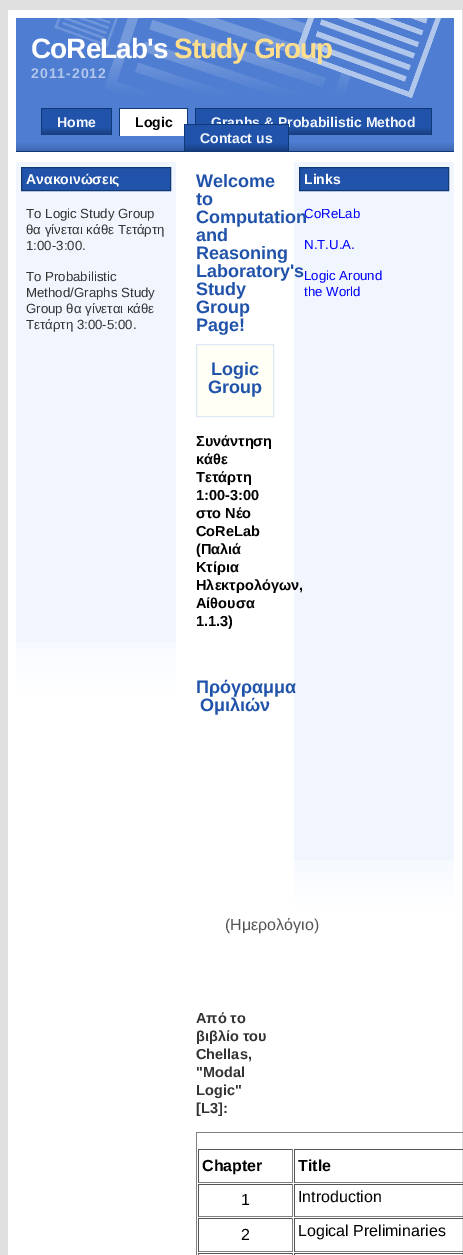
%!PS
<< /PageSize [463 1255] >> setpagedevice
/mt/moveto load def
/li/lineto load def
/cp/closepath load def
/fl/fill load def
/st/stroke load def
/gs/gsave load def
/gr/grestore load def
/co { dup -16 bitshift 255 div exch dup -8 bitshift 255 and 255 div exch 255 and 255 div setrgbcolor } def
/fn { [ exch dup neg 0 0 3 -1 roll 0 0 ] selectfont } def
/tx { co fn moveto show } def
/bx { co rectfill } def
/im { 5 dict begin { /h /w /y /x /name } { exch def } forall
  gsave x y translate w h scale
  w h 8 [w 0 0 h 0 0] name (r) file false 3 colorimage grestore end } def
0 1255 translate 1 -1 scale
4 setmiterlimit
0 0 463 1255 16#E0E0E0 bx
8 10 454 1245 16#FFFFFF bx
16 18 438 125 16#4E7DD1 bx
(media/1.raw) 16 143 438 8 im
(media/2.raw) 54 18 387 80 im
16 151 438 1 16#0F3974 bx
42 109 69 19 16#2153AA bx
41 108 71 1 16#0F3974 bx
111 108 1 27 16#0F3974 bx
41 108 1 27 16#0F3974 bx
120 109 67 26 16#FFFFFF bx
119 108 69 1 16#0F3974 bx
187 108 1 16 16#0F3974 bx
119 135 69 1 16#FFFFFF bx
119 108 1 28 16#0F3974 bx
196 109 235 19 16#2153AA bx
195 108 237 1 16#0F3974 bx
431 108 1 27 16#0F3974 bx
195 108 1 16 16#0F3974 bx
(media/3.raw) 42 128 69 7 im
(media/4.raw) 289 128 142 7 im
(media/5.raw) 185 144 103 7 im
16 162 160 480 16#F1F6FE bx
(media/6.raw) 16 642 160 56 im
16#2153AA co
21.5 167.5 mt 170.5 167.5 li 170.5 190.5 li 21.5 190.5 li cp gs fl gr
16#0F3974 co
st
16#FFFFF6 co
196.5 344.5 mt 273.5 344.5 li 273.5 416.5 li 196.5 416.5 li cp gs fl gr
16#DFE8F7 co
st
196 1132 267 1 16#808080 bx
196 1132 1 123 16#808080 bx
198 1149 95 1 16#555555 bx
292 1149 1 34 16#808080 bx
198 1182 95 1 16#808080 bx
198 1149 1 34 16#555555 bx
294 1149 169 1 16#555555 bx
294 1182 169 1 16#808080 bx
294 1149 1 34 16#555555 bx
198 1184 95 1 16#555555 bx
292 1184 1 33 16#808080 bx
198 1216 95 1 16#808080 bx
198 1184 1 33 16#555555 bx
294 1184 169 1 16#555555 bx
294 1216 169 1 16#808080 bx
294 1184 1 33 16#555555 bx
198 1218 95 1 16#555555 bx
292 1218 1 34 16#808080 bx
198 1251 95 1 16#808080 bx
198 1218 1 34 16#555555 bx
294 1218 169 1 16#555555 bx
294 1251 169 1 16#808080 bx
294 1218 1 34 16#555555 bx
198 1253 95 1 16#555555 bx
292 1253 1 2 16#808080 bx
198 1253 1 2 16#555555 bx
294 1253 169 1 16#555555 bx
294 1253 1 2 16#555555 bx
294 162 160 698 16#F1F6FE bx
(media/6.raw) 294 860 160 56 im
16#2153AA co
299.5 167.5 mt 448.5 167.5 li 448.5 190.5 li 299.5 190.5 li cp gs fl gr
16#0F3974 co
st
/LiberationSans-Bold 28 fn
16#FFFFFF co
31 58 mt -1 0 (CoReLab's) ashow
16#FFDF8C co
174 58 mt -1 0 (Study Group) ashow
/LiberationSans-Bold 14 fn
16#B1C6EB co
31 78 mt 1 0 (2011-2012) ashow
(Home) 57 127 /LiberationSans-Bold 14 16#F1F6FE tx
(Logic) 135 127 /LiberationSans-Bold 14 16#000000 tx
(Graphs & Probabilistic Method) 211 127 /LiberationSans-Bold 14 16#F1F6FE tx
185 125 103 19 16#2153AA bx
(Contact us) 200 143 /LiberationSans-Bold 14 16#F1F6FE tx
184 124 105 1 16#0F3974 bx
288 124 1 27 16#0F3974 bx
184 124 1 27 16#0F3974 bx
(Ανακοινώσεις) 26 184 /LiberationSans-Bold 14 16#FFFFFF tx
(To Logic Study Group) 26 218 /LiberationSans-Regular 13.25 16#333333 tx
(θα γίνεται κάθε Τετάρτη) 26 234 /LiberationSans-Regular 13.25 16#333333 tx
(1:00-3:00.) 26 250 /LiberationSans-Regular 13.25 16#333333 tx
(Το Probabilistic) 26 281 /LiberationSans-Regular 13.25 16#333333 tx
(Method/Graphs Study) 26 297 /LiberationSans-Regular 13.25 16#333333 tx
(Group θα γίνεται κάθε) 26 313 /LiberationSans-Regular 13.25 16#333333 tx
(Τετάρτη 3:00-5:00.) 26 329 /LiberationSans-Regular 13.25 16#333333 tx
(Welcome) 196 187 /LiberationSans-Bold 18 16#2153AA tx
(to) 196 205 /LiberationSans-Bold 18 16#2153AA tx
(and) 196 241 /LiberationSans-Bold 18 16#2153AA tx
(Reasoning) 196 259 /LiberationSans-Bold 18 16#2153AA tx
(Laboratory's) 196 277 /LiberationSans-Bold 18 16#2153AA tx
(Study) 196 295 /LiberationSans-Bold 18 16#2153AA tx
(Group) 196 313 /LiberationSans-Bold 18 16#2153AA tx
(Page!) 196 331 /LiberationSans-Bold 18 16#2153AA tx
(Logic) 211 375 /LiberationSans-Bold 18 16#2153AA tx
(Group) 208 393 /LiberationSans-Bold 18 16#2153AA tx
(Συνάντηση) 196 446 /LiberationSans-Bold 14.5 16#000000 tx
(κάθε) 196 464 /LiberationSans-Bold 14.5 16#000000 tx
(Τετάρτη) 196 482 /LiberationSans-Bold 14.5 16#000000 tx
(1:00-3:00) 196 500 /LiberationSans-Bold 14.5 16#000000 tx
(στο Νέο) 196 518 /LiberationSans-Bold 14.5 16#000000 tx
(CoReLab) 196 536 /LiberationSans-Bold 14.5 16#000000 tx
(\(Παλιά) 196 554 /LiberationSans-Bold 14.5 16#000000 tx
(Κτίρια) 196 572 /LiberationSans-Bold 14.5 16#000000 tx
(Ηλεκτρολόγων,) 196 590 /LiberationSans-Bold 14.5 16#000000 tx
(Αίθουσα) 196 608 /LiberationSans-Bold 14.5 16#000000 tx
(1.1.3\)) 196 626 /LiberationSans-Bold 14.5 16#000000 tx
(Πρόγραμμα) 196 693 /LiberationSans-Bold 18 16#2153AA tx
(Ομιλιών) 200 711 /LiberationSans-Bold 18 16#2153AA tx
(\(Ημερολόγιο\)) 225 930 /LiberationSans-Regular 16 16#555555 tx
(Από το) 196 1023 /LiberationSans-Bold 14.5 16#333333 tx
(βιβλίο του) 196 1041 /LiberationSans-Bold 14.5 16#333333 tx
(Chellas,) 196 1059 /LiberationSans-Bold 14.5 16#333333 tx
("Modal) 196 1077 /LiberationSans-Bold 14.5 16#333333 tx
(Logic") 196 1095 /LiberationSans-Bold 14.5 16#333333 tx
([L3]:) 196 1113 /LiberationSans-Bold 14.5 16#333333 tx
(Chapter) 202 1171 /LiberationSans-Bold 16 16#000000 tx
(Title) 298 1171 /LiberationSans-Bold 16 16#000000 tx
(1) 241 1205 /LiberationSans-Regular 16 16#000000 tx
(Introduction) 298 1202 /LiberationSans-Regular 16 16#000000 tx
(2) 241 1240 /LiberationSans-Regular 16 16#000000 tx
(Logical Preliminaries) 298 1236 /LiberationSans-Regular 16 16#000000 tx
(Links) 304 184 /LiberationSans-Bold 14 16#FFFFFF tx
(CoReLab) 304 218 /LiberationSans-Regular 13.25 16#0000FF tx
(Computation) 196 223 /LiberationSans-Bold 18 16#2153AA tx
(N.T.U.A.) 304 249 /LiberationSans-Regular 13.25 16#0000FF tx
(Logic Around) 304 280 /LiberationSans-Regular 13.25 16#0000FF tx
(the World) 304 296 /LiberationSans-Regular 13.25 16#0000FF tx
showpage
